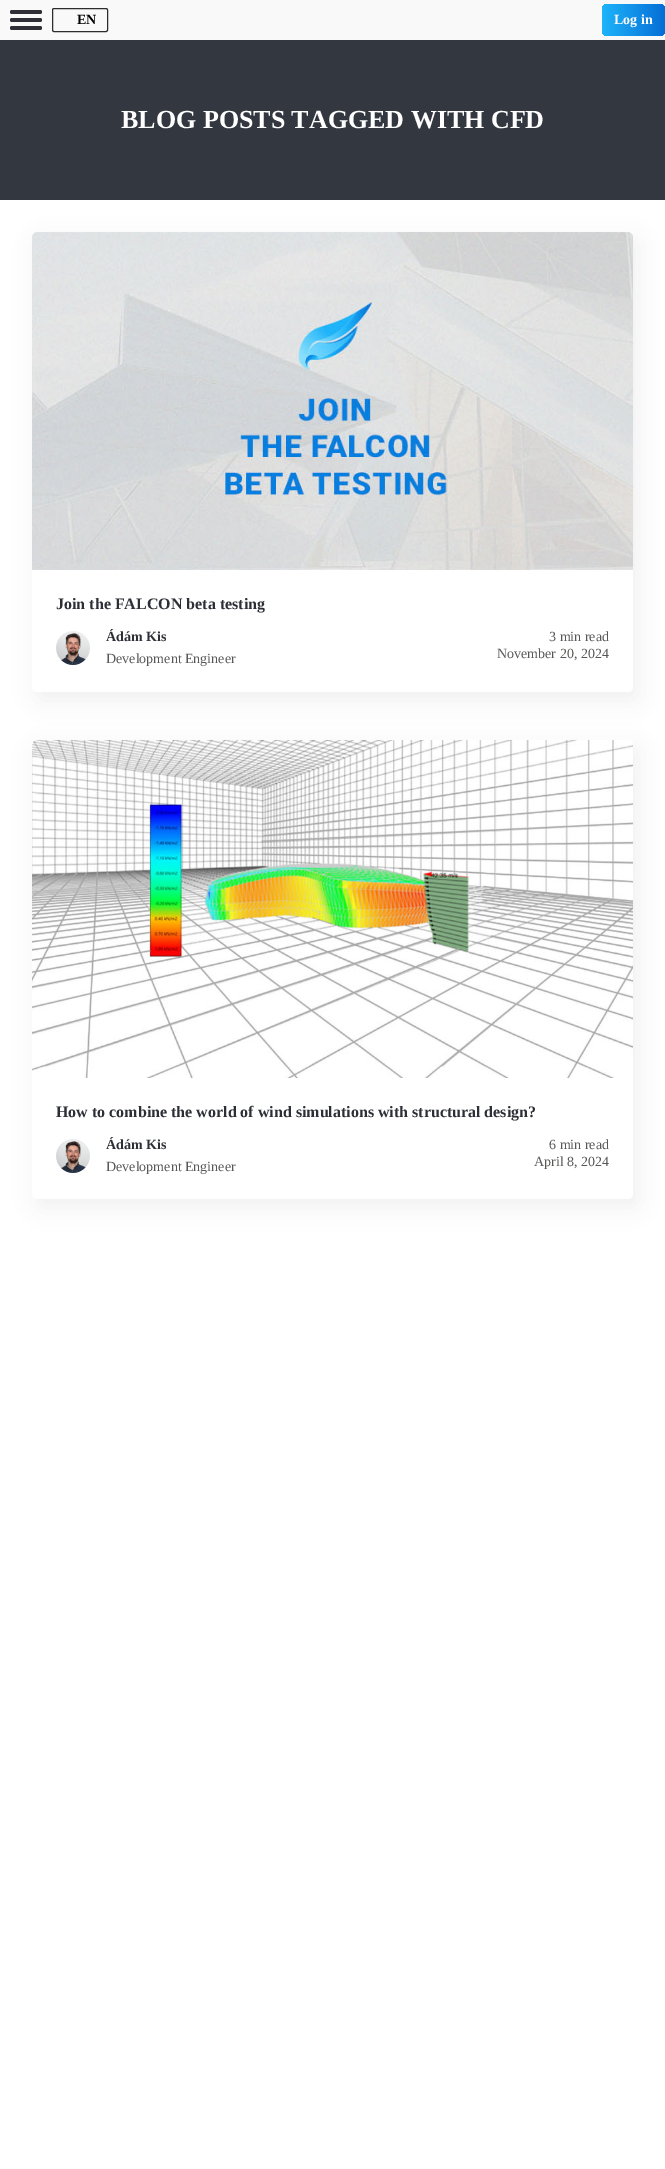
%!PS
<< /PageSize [665 2169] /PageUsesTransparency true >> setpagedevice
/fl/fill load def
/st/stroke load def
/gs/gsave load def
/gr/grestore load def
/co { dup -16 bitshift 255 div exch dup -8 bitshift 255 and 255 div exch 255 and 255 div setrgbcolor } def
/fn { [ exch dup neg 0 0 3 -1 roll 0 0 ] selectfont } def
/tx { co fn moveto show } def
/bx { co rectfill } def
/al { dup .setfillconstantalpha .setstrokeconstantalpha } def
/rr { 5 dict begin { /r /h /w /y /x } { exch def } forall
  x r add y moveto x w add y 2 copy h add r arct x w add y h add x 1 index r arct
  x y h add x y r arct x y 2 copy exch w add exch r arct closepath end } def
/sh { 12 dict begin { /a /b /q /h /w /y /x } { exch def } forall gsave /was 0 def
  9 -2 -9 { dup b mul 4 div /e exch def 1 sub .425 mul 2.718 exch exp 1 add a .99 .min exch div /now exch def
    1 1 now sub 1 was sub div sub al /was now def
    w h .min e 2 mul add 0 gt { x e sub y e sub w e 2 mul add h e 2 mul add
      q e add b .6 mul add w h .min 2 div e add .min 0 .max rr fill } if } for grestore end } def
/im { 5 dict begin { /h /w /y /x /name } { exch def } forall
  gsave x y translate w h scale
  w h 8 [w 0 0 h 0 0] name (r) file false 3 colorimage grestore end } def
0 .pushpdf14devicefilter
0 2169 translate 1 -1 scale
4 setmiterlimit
0 0 665 2169 16#FFFFFF bx
0 0 665 40 16#F9F9F9 bx
16#2F2F35 co
10 10 32 4 2 rr fl
10 18 32 4 2 rr fl
10 26 32 4 2 rr fl
16#2D2D2D co
52.5 8.5 55 23 1.5 rr st
gs 602 4 63 32 5 rr clip newpath
<< /ShadingType 2 /ColorSpace /DeviceRGB /Coords [602 20 665 20] /Extend [true true] /Function << /FunctionType 2 /Domain [0 1] /C0 [.118 .706 .98] /C1 [.024 .431 .839] /N 1 >> >> shfill gr
0 40 665 160 16#333840 bx
16#2C2F35 co
37 240 601 460 5 11 .07 sh
16#FFFFFF co
32 232 601 460 5 rr fl
(media/1.raw) 32 232 601 338 im
(media/2.raw) 56 631 34 34 im
16#2C2F35 co
37 748 601 459 5 11 .07 sh
16#FFFFFF co
32 740 601 459 5 rr fl
(media/3.raw) 32 740 601 338 im
(media/2.raw) 56 1139 34 34 im
(EN) 77 24 /LiberationSerif-Bold 14 16#000000 tx
(Log in) 614 24 /LiberationSerif-Bold 14 16#FFFFFF tx
(BLOG POSTS TAGGED WITH CFD) 121 128 /LiberationSerif-Bold 26 16#FFFFFF tx
(Join the FALCON beta testing) 56 609 /LiberationSerif-Bold 16 16#2C2F35 tx
(Ádám Kis) 106 641 /LiberationSerif-Bold 14 16#2C2F35 tx
(Development Engineer) 106 663 /LiberationSerif-Regular 14 16#575756 tx
(3 min read) 549 641 /LiberationSerif-Regular 14 16#575756 tx
(November 20, 2024) 497 658 /LiberationSerif-Regular 14 16#575756 tx
(How to combine the world of wind simulations with structural design?) 56 1117 /LiberationSerif-Bold 16 16#2C2F35 tx
(Ádám Kis) 106 1149 /LiberationSerif-Bold 14 16#2C2F35 tx
(Development Engineer) 106 1171 /LiberationSerif-Regular 14 16#575756 tx
(6 min read) 549 1149 /LiberationSerif-Regular 14 16#575756 tx
(April 8, 2024) 534 1166 /LiberationSerif-Regular 14 16#575756 tx
.poppdf14devicefilter showpage
